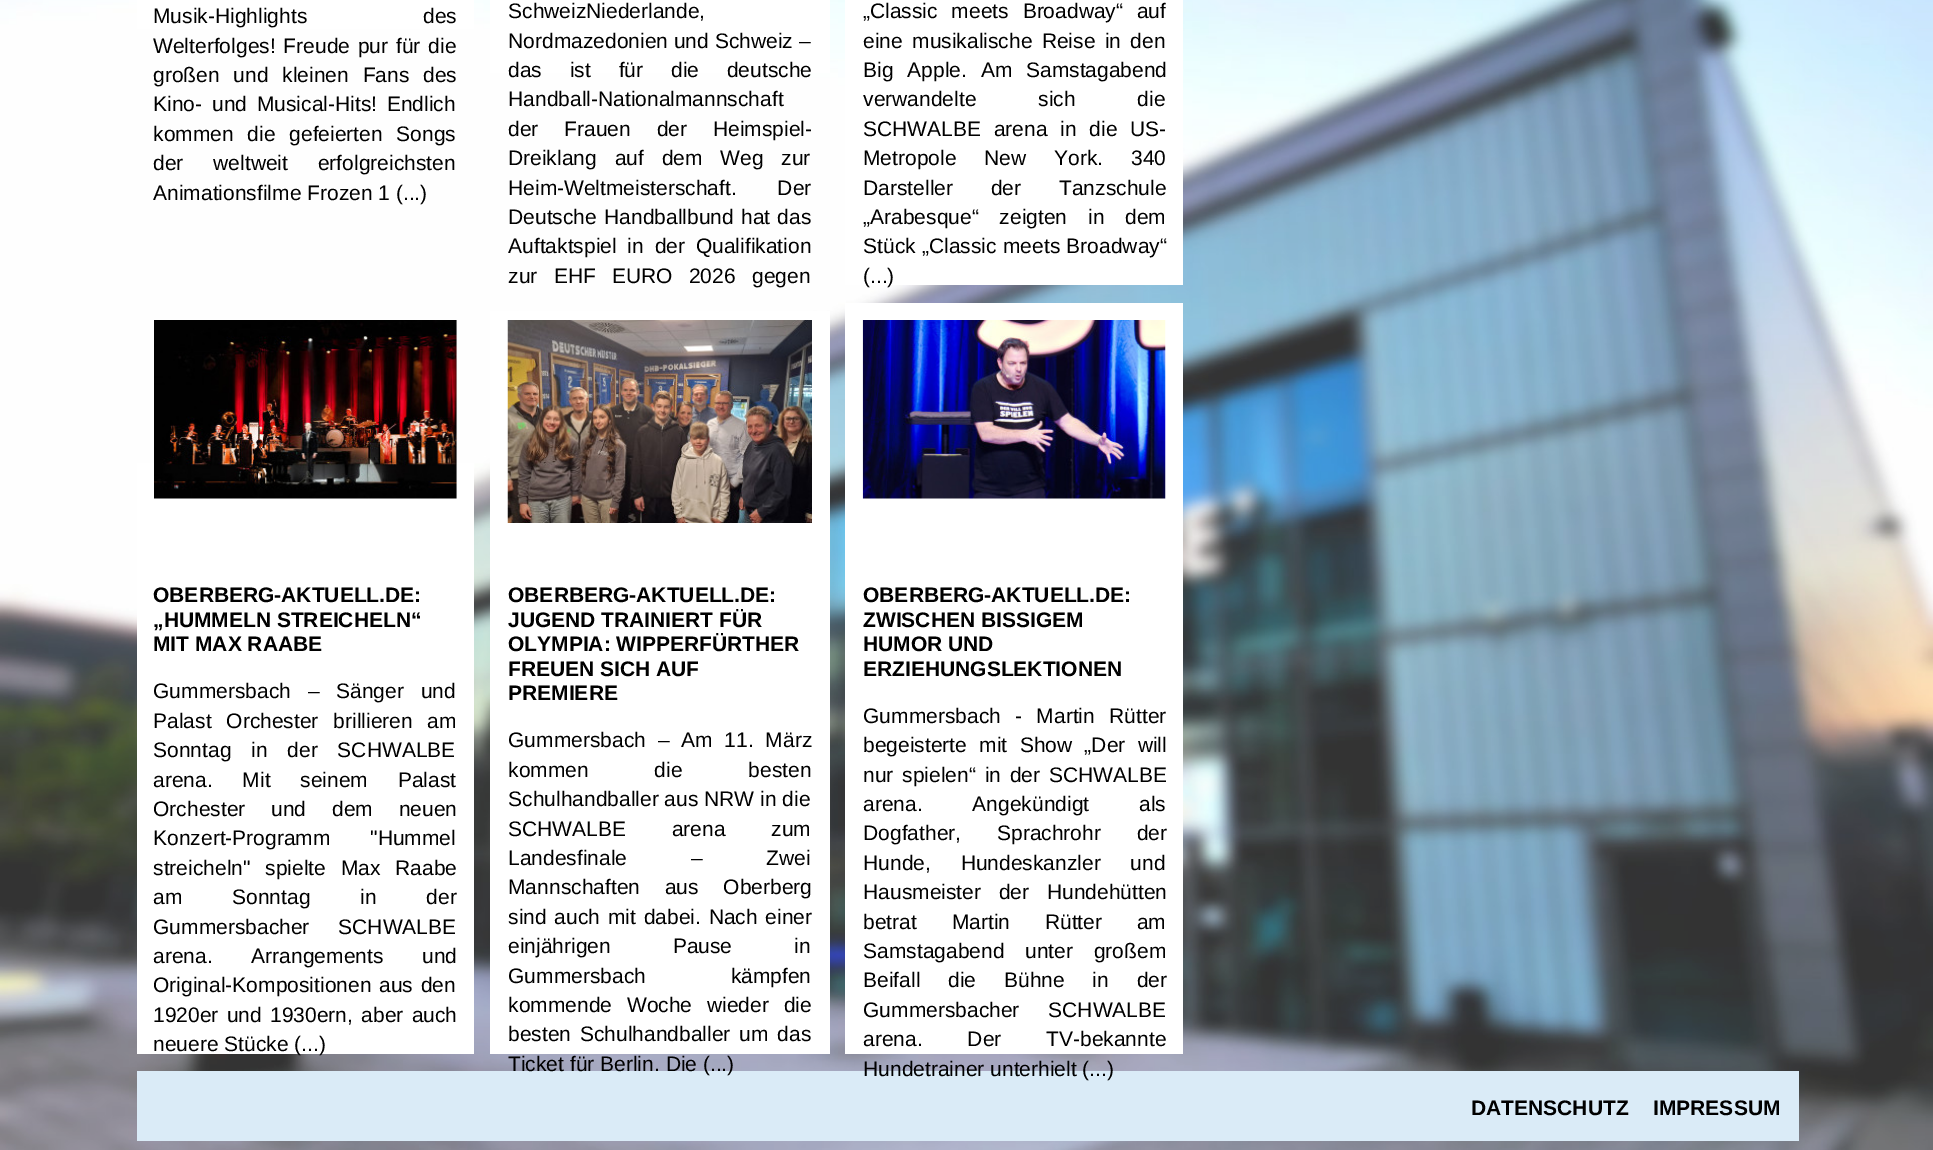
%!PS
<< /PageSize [1933 1150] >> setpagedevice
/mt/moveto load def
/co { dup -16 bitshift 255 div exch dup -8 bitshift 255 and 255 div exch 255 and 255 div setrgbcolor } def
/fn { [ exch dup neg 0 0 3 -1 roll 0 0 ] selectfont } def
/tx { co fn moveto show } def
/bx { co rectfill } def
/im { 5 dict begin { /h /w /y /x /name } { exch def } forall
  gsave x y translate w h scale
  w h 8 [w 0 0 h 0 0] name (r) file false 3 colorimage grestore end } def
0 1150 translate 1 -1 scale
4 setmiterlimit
0 0 1933 1150 16#FFFFFF bx
(media/1.raw) 0 0 1933 1150 im
137 0 337 29 16#FFFFFF bx
490 0 340 73 16#FFFFFF bx
845 0 338 285 16#FFFFFF bx
137 463 337 591 16#FFFFFF bx
(media/2.raw) 154 320 303 179 im
490 311 340 743 16#FFFFFF bx
(media/3.raw) 507 320 305 203 im
845 303 338 751 16#FFFFFF bx
(media/4.raw) 862 320 304 179 im
137 1071 1662 70 16#DAEBF7 bx
/LiberationSans-Regular 21 fn
16#000000 co
153 23 mt 110 0 32 (Musik-Highlights des) widthshow
153 53 mt 2 0 32 (Welterfolges! Freude pur für die) widthshow
153 82 mt 8 0 32 (großen und kleinen Fans des) widthshow
153 111 mt 4 0 32 (Kino- und Musical-Hits! Endlich) widthshow
153 141 mt 8 0 32 (kommen die gefeierten Songs) widthshow
153 170 mt 24 0 32 (der weltweit erfolgreichsten) widthshow
(Animationsfilme Frozen 1 \(...\)) 153 200 /LiberationSans-Regular 21 16#000000 tx
(SchweizNiederlande,) 508 18 /LiberationSans-Regular 21 16#000000 tx
(Nordmazedonien und Schweiz –) 508 48 /LiberationSans-Regular 21 16#000000 tx
508 77 mt 22 0 32 (das ist für die deutsche) widthshow
(Handball-Nationalmannschaft) 508 106 /LiberationSans-Regular 21 16#000000 tx
508 136 mt 20 0 32 (der Frauen der Heimspiel-) widthshow
508 165 mt 12 0 32 (Dreiklang auf dem Weg zur) widthshow
508 195 mt 35 0 32 (Heim-Weltmeisterschaft. Der) widthshow
508 224 mt 1.5 0 32 (Deutsche Handballbund hat das) widthshow
508 253 mt 5 0 32 (Auftaktspiel in der Qualifikation) widthshow
508 283 mt 10.5 0 32 (zur EHF EURO 2026 gegen) widthshow
863 18 mt 8 0 32 („Classic meets Broadway“ auf) widthshow
863 48 mt 3.5 0 32 (eine musikalische Reise in den) widthshow
863 77 mt 8 0 32 (Big Apple. Am Samstagabend) widthshow
863 106 mt 56 0 32 (verwandelte sich die) widthshow
863 136 mt 7 0 32 (SCHWALBE arena in die US-) widthshow
863 165 mt 22 0 32 (Metropole New York. 340) widthshow
863 195 mt 32 0 32 (Darsteller der Tanzschule) widthshow
863 224 mt 15 0 32 („Arabesque“ zeigten in dem) widthshow
863 253 mt .5 0 32 (Stück „Classic meets Broadway“) widthshow
(\(...\)) 863 283 /LiberationSans-Regular 21 16#000000 tx
(OBERBERG-AKTUELL.DE:) 153 602 /LiberationSans-Bold 21 16#000000 tx
(„HUMMELN STREICHELN“) 153 627 /LiberationSans-Bold 21 16#000000 tx
(MIT MAX RAABE) 153 651 /LiberationSans-Bold 21 16#000000 tx
/LiberationSans-Regular 21 fn
153 698 mt 11 0 32 (Gummersbach – Sänger und) widthshow
153 728 mt 9 0 32 (Palast Orchester brillieren am) widthshow
153 757 mt 14 0 32 (Sonntag in der SCHWALBE) widthshow
153 787 mt 24 0 32 (arena. Mit seinem Palast) widthshow
153 816 mt 20 0 32 (Orchester und dem neuen) widthshow
153 845 mt 34 0 32 (Konzert-Programm "Hummel) widthshow
153 875 mt 9 0 32 (streicheln" spielte Max Raabe) widthshow
153 904 mt 44 0 32 (am Sonntag in der) widthshow
153 934 mt 23 0 32 (Gummersbacher SCHWALBE) widthshow
153 963 mt 33 0 32 (arena. Arrangements und) widthshow
153 992 mt 2 0 32 (Original-Kompositionen aus den) widthshow
153 1022 mt 2.5 0 32 (1920er und 1930ern, aber auch) widthshow
(neuere Stücke \(...\)) 153 1051 /LiberationSans-Regular 21 16#000000 tx
(OBERBERG-AKTUELL.DE:) 508 602 /LiberationSans-Bold 21 16#000000 tx
(JUGEND TRAINIERT FÜR) 508 627 /LiberationSans-Bold 21 16#000000 tx
(OLYMPIA: WIPPERFÜRTHER) 508 651 /LiberationSans-Bold 21 16#000000 tx
(FREUEN SICH AUF) 508 676 /LiberationSans-Bold 21 16#000000 tx
(PREMIERE) 508 700 /LiberationSans-Bold 21 16#000000 tx
/LiberationSans-Regular 21 fn
508 747 mt 6 0 32 (Gummersbach – Am 11. März) widthshow
508 777 mt 60 0 32 (kommen die besten) widthshow
(Schulhandballer aus NRW in die) 508 806 /LiberationSans-Regular 21 16#000000 tx
508 836 mt 40 0 32 (SCHWALBE arena zum) widthshow
508 865 mt 58 0 32 (Landesfinale – Zwei) widthshow
508 894 mt 19 0 32 (Mannschaften aus Oberberg) widthshow
508 924 mt 2 0 32 (sind auch mit dabei. Nach einer) widthshow
508 953 mt 56 0 32 (einjährigen Pause in) widthshow
508 983 mt 79 0 32 (Gummersbach kämpfen) widthshow
508 1012 mt 9 0 32 (kommende Woche wieder die) widthshow
508 1041 mt 3 0 32 (besten Schulhandballer um das) widthshow
(Ticket für Berlin. Die \(...\)) 508 1071 /LiberationSans-Regular 21 16#000000 tx
(OBERBERG-AKTUELL.DE:) 863 602 /LiberationSans-Bold 21 16#000000 tx
(ZWISCHEN BISSIGEM) 863 627 /LiberationSans-Bold 21 16#000000 tx
(HUMOR UND) 863 651 /LiberationSans-Bold 21 16#000000 tx
(ERZIEHUNGSLEKTIONEN) 863 676 /LiberationSans-Bold 21 16#000000 tx
/LiberationSans-Regular 21 fn
863 723 mt 8.5 0 32 (Gummersbach - Martin Rütter) widthshow
863 752 mt 6.5 0 32 (begeisterte mit Show „Der will) widthshow
863 782 mt 3 0 32 (nur spielen“ in der SCHWALBE) widthshow
863 811 mt 44 0 32 (arena. Angekündigt als) widthshow
863 840 mt 30 0 32 (Dogfather, Sprachrohr der) widthshow
863 870 mt 24 0 32 (Hunde, Hundeskanzler und) widthshow
863 899 mt 12 0 32 (Hausmeister der Hundehütten) widthshow
863 929 mt 29 0 32 (betrat Martin Rütter am) widthshow
863 958 mt 15 0 32 (Samstagabend unter großem) widthshow
863 987 mt 22 0 32 (Beifall die Bühne in der) widthshow
863 1017 mt 23 0 32 (Gummersbacher SCHWALBE) widthshow
863 1046 mt 39 0 32 (arena. Der TV-bekannte) widthshow
(Hundetrainer unterhielt \(...\)) 863 1076 /LiberationSans-Regular 21 16#000000 tx
(DATENSCHUTZ) 1471 1115 /LiberationSans-Bold 21 16#000000 tx
(IMPRESSUM) 1653 1115 /LiberationSans-Bold 21 16#000000 tx
showpage
